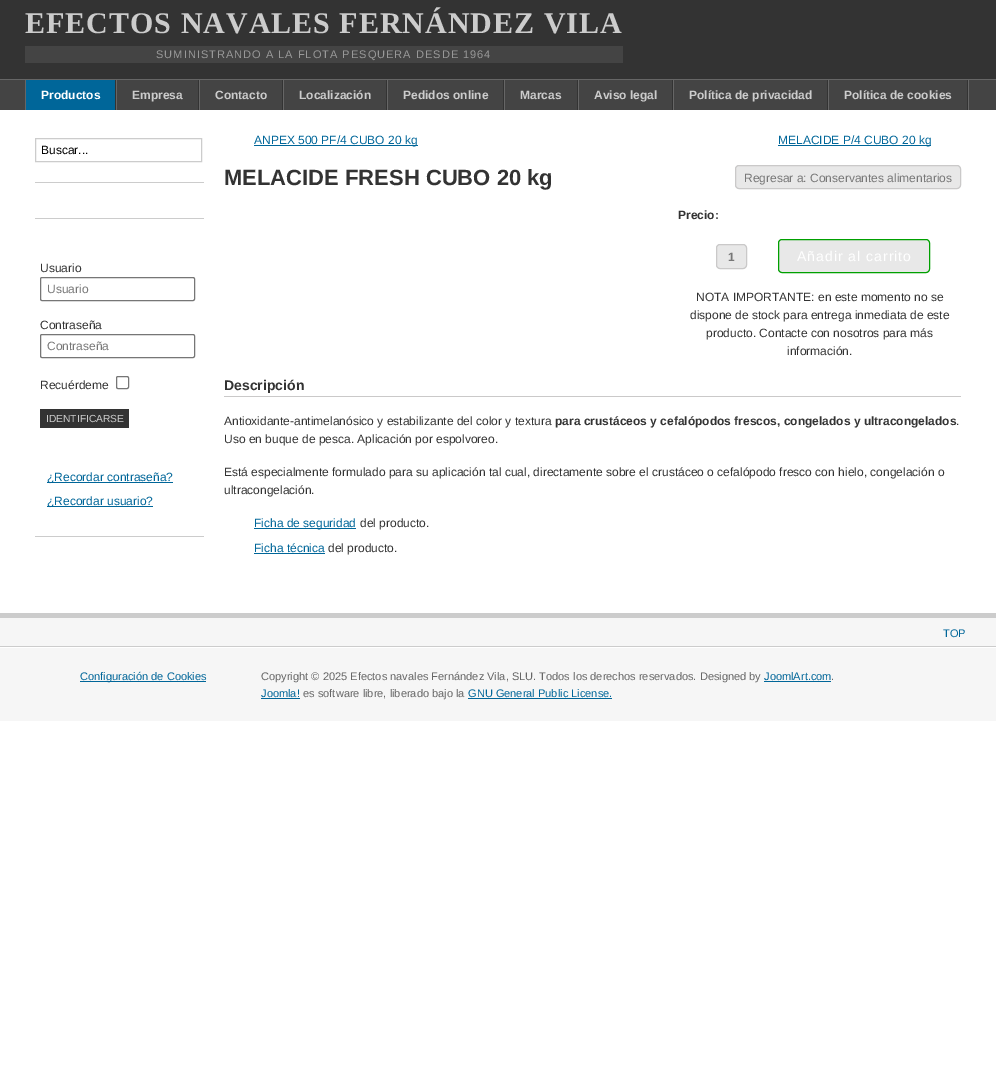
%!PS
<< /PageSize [996 1069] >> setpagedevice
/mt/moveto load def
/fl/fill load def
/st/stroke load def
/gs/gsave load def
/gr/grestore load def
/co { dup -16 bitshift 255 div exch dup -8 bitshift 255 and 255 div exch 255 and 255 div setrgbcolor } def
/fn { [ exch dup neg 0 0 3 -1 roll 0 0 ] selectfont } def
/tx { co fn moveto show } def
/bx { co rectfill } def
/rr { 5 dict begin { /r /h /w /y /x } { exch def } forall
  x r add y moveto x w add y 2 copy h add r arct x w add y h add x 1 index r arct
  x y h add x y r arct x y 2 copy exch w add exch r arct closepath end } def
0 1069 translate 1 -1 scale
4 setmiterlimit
0 0 996 1069 16#FFFFFF bx
0 0 996 79 16#333333 bx
25 46 598 17 16#444444 bx
0 80 996 30 16#444444 bx
0 79 996 1 16#666666 bx
968 80 1 30 16#666666 bx
26 80 89 30 16#006699 bx
115 80 1 30 16#333333 bx
25 80 1 30 16#666666 bx
198 80 1 30 16#333333 bx
116 80 1 30 16#666666 bx
282 80 1 30 16#333333 bx
199 80 1 30 16#666666 bx
386 80 1 30 16#333333 bx
283 80 1 30 16#666666 bx
503 80 1 30 16#333333 bx
387 80 1 30 16#666666 bx
577 80 1 30 16#333333 bx
504 80 1 30 16#666666 bx
672 80 1 30 16#333333 bx
578 80 1 30 16#666666 bx
827 80 1 30 16#333333 bx
673 80 1 30 16#666666 bx
967 80 1 30 16#333333 bx
828 80 1 30 16#666666 bx
0 613 996 5 16#CCCCCC bx
35 182 169 1 16#CCCCCC bx
35.5 138.5 166 23 rectstroke
35 218 169 1 16#CCCCCC bx
35 536 169 1 16#CCCCCC bx
16#767676 co
40.5 277.5 154 23 1.5 rr st
40.5 334.5 154 23 1.5 rr st
116.5 376.5 12 12 1.5 rr st
40 409 89 19 16#333333 bx
47 482 126 1 16#006699 bx
47 506 106 1 16#006699 bx
254 145 164 1 16#006699 bx
778 145 153 1 16#006699 bx
16#E8E8E8 co
735.5 165.5 225 23 3.5 rr gs fl gr
16#CAC9C9 co
st
16#E8E8E8 co
716.5 244.5 30 24 3.5 rr gs fl gr
16#CAC9C9 co
st
16#E8E8E8 co
778.5 239.5 151 33 3.5 rr gs fl gr
16#00A000 co
st
224 396 737 1 16#CAC9C9 bx
254 528 102 1 16#006699 bx
254 553 71 1 16#006699 bx
0 618 996 28 16#F6F6F6 bx
0 646 996 1 16#CCCCCC bx
0 648 996 73 16#F6F6F6 bx
80 681 126 1 16#006699 bx
764 681 67 1 16#006699 bx
261 698 39 1 16#006699 bx
468 698 144 1 16#006699 bx
/LiberationSerif-Bold 30 fn
16#CCCCCC co
25 33 mt 1 0 (EFECTOS NAVALES FERNÁNDEZ VILA) ashow
/LiberationSans-Regular 11.05 fn
16#999999 co
156 58 mt 1 0 (SUMINISTRANDO A LA FLOTA PESQUERA DESDE 1964) ashow
(Productos) 41 99 /LiberationSans-Bold 12 16#FFFFFF tx
(Empresa) 132 99 /LiberationSans-Bold 12 16#CCCCCC tx
(Contacto) 215 99 /LiberationSans-Bold 12 16#CCCCCC tx
(Localización) 299 99 /LiberationSans-Bold 12 16#CCCCCC tx
(Pedidos online) 403 99 /LiberationSans-Bold 12 16#CCCCCC tx
(Marcas) 520 99 /LiberationSans-Bold 12 16#CCCCCC tx
(Aviso legal) 594 99 /LiberationSans-Bold 12 16#CCCCCC tx
(Política de privacidad) 689 99 /LiberationSans-Bold 12 16#CCCCCC tx
(Política de cookies) 844 99 /LiberationSans-Bold 12 16#CCCCCC tx
(Buscar...) 41 154 /LiberationSans-Regular 12 16#000000 tx
(Usuario) 40 272 /LiberationSans-Regular 12 16#333333 tx
(Usuario) 47 293 /LiberationSans-Regular 12 16#777777 tx
(Contraseña) 40 329 /LiberationSans-Regular 12 16#333333 tx
(Contraseña) 47 350 /LiberationSans-Regular 12 16#777777 tx
(Recuérdeme) 40 389 /LiberationSans-Regular 12 16#333333 tx
(IDENTIFICARSE) 46 422 /LiberationSans-Regular 10.25 16#CCCCCC tx
(¿Recordar contraseña?) 47 481 /LiberationSans-Regular 12 16#006699 tx
(¿Recordar usuario?) 47 505 /LiberationSans-Regular 12 16#006699 tx
(ANPEX 500 PF/4 CUBO 20 kg) 254 144 /LiberationSans-Regular 12 16#006699 tx
(MELACIDE P/4 CUBO 20 kg) 778 144 /LiberationSans-Regular 12 16#006699 tx
(MELACIDE FRESH CUBO 20 kg) 224 185 /LiberationSans-Bold 22 16#333333 tx
(Regresar a: Conservantes alimentarios) 744 182 /LiberationSans-Regular 12 16#777777 tx
(Precio:) 678 219 /LiberationSans-Bold 12 16#333333 tx
(1) 728 261 /LiberationSans-Bold 12 16#777777 tx
/LiberationSans-Regular 14 fn
16#FFFFFF co
797 261 mt 1 0 (Añadir al carrito) ashow
(NOTA IMPORTANTE: en este momento no se) 696 301 /LiberationSans-Regular 12 16#333333 tx
(dispone de stock para entrega inmediata de este) 690 319 /LiberationSans-Regular 12 16#333333 tx
(producto. Contacte con nosotros para más) 706 337 /LiberationSans-Regular 12 16#333333 tx
(información.) 787 355 /LiberationSans-Regular 12 16#333333 tx
(Descripción) 224 390 /LiberationSans-Bold 14 16#333333 tx
(Antioxidante-antimelanósico y estabilizante del color y textura) 224 425 /LiberationSans-Regular 12 16#333333 tx
(para crustáceos y cefalópodos frescos, congelados y ultracongelados) 555 425 /LiberationSans-Bold 12 16#333333 tx
(.) 956 425 /LiberationSans-Regular 12 16#333333 tx
(Uso en buque de pesca. Aplicación por espolvoreo.) 224 443 /LiberationSans-Regular 12 16#333333 tx
(Está especialmente formulado para su aplicación tal cual, directamente sobre el crustáceo o cefalópodo fresco con hielo, congelación o) 224 476 /LiberationSans-Regular 12 16#333333 tx
(ultracongelación.) 224 494 /LiberationSans-Regular 12 16#333333 tx
(Ficha de seguridad) 254 527 /LiberationSans-Regular 12 16#006699 tx
(del producto.) 360 527 /LiberationSans-Regular 12 16#333333 tx
(Ficha técnica) 254 552 /LiberationSans-Regular 12 16#006699 tx
(del producto.) 328 552 /LiberationSans-Regular 12 16#333333 tx
(TOP) 943 637 /LiberationSans-Regular 11.05 16#006699 tx
(Configuración de Cookies) 80 680 /LiberationSans-Regular 11.05 16#006699 tx
(Copyright © 2025 Efectos navales Fernández Vila, SLU. Todos los derechos reservados. Designed by) 261 680 /LiberationSans-Regular 11.05 16#666666 tx
(JoomlArt.com) 764 680 /LiberationSans-Regular 11.05 16#006699 tx
(.) 831 680 /LiberationSans-Regular 11.05 16#666666 tx
(Joomla!) 261 697 /LiberationSans-Regular 11.05 16#006699 tx
(es software libre, liberado bajo la) 303 697 /LiberationSans-Regular 11.05 16#666666 tx
(GNU General Public License.) 468 697 /LiberationSans-Regular 11.05 16#006699 tx
showpage
